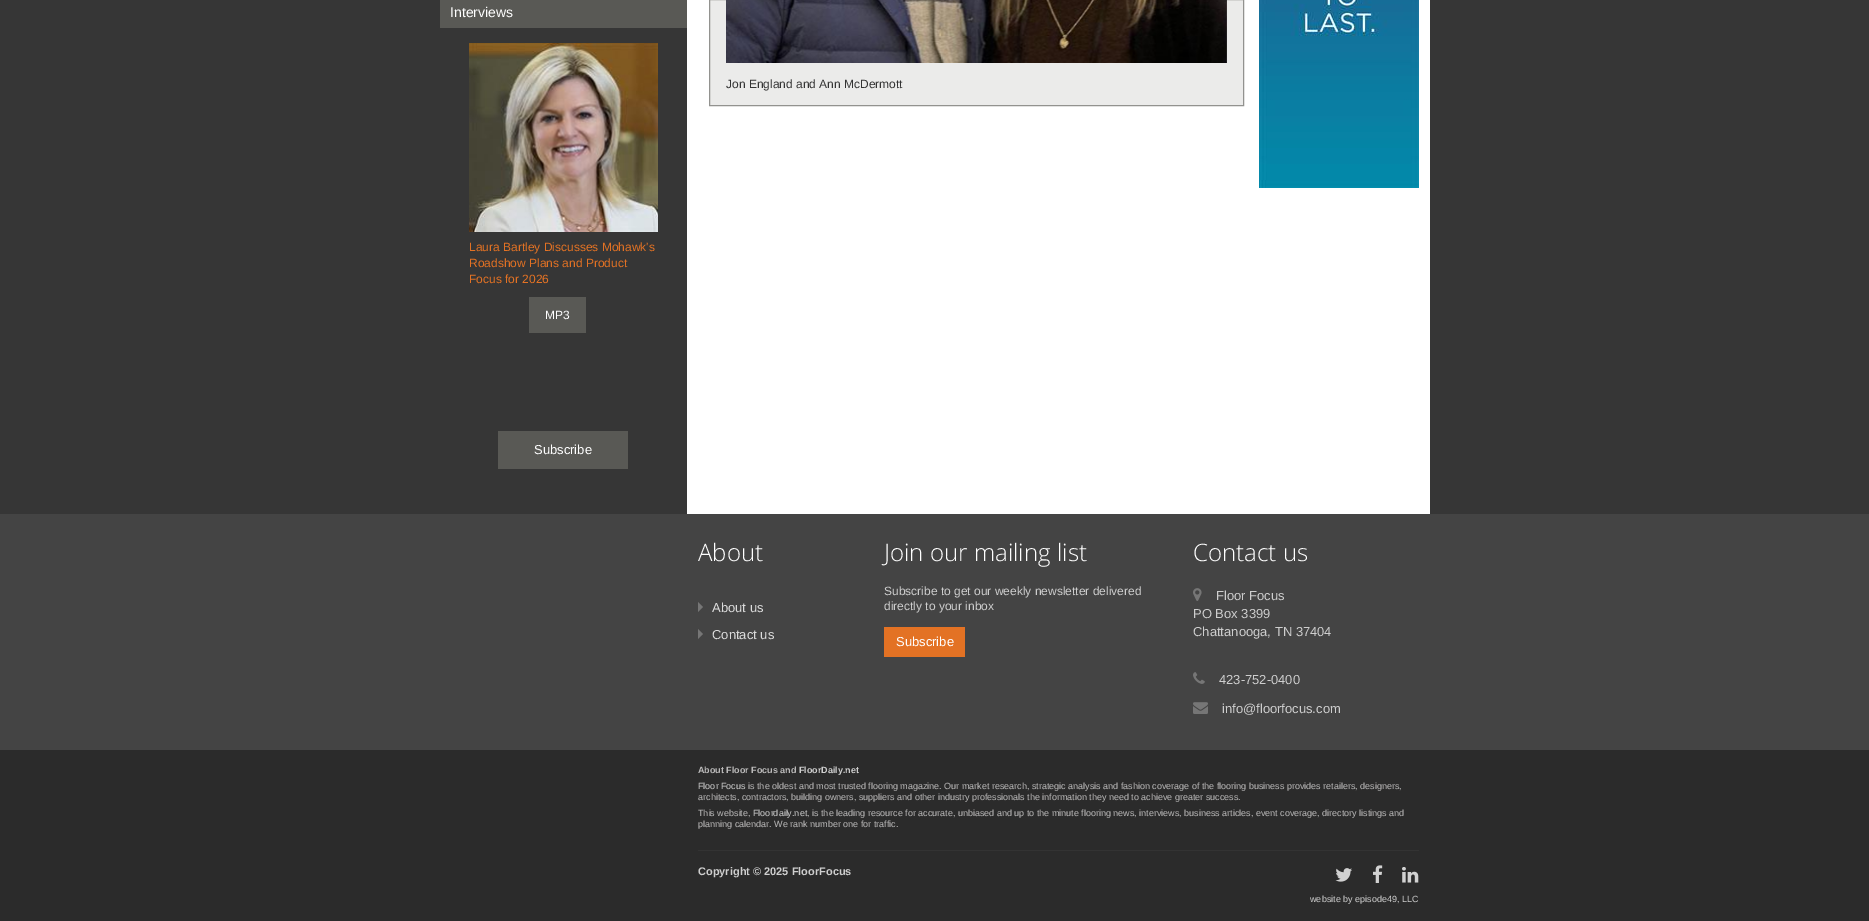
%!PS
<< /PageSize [1869 921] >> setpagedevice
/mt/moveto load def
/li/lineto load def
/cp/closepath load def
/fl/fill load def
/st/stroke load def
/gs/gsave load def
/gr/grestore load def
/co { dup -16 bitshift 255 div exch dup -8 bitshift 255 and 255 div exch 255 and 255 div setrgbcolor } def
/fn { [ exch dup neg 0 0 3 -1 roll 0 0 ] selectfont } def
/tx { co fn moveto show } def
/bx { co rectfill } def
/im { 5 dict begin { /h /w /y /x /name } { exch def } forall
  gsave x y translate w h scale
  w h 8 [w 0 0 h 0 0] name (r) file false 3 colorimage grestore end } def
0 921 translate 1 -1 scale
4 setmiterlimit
0 0 1869 921 16#363636 bx
440 0 247 28 16#595955 bx
(media/1.raw) 469 43 189 189 im
529 297 57 36 16#595955 bx
498 431 130 38 16#595955 bx
687 0 743 514 16#FFFFFF bx
16#EBEBEA co
709.5 -.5 mt 1243.5 -.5 li 1243.5 105.5 li 709.5 105.5 li cp gs fl gr
16#92928F co
st
(media/2.raw) 726 0 501 63 im
(media/3.raw) 1259 0 160 188 im
0 514 1869 236 16#444444 bx
16#767676 co
698 612 mt 698 602 li 703 607 li cp fl
698 639 mt 698 629 li 703 634 li cp fl
884 627 81 30 16#E37224 bx
(media/4.raw) 1193 588 9 13 im
(media/5.raw) 1193 672 12 12 im
(media/6.raw) 1193 702 15 12 im
0 750 1869 171 16#2B2B2B bx
698 850 721 1 16#333333 bx
(media/7.raw) 1335 868 17 14 im
(media/8.raw) 1373 865 10 18 im
(media/9.raw) 1402 867 17 16 im
(Interviews) 450 17 /LiberationSans-Regular 14 16#FFFFFF tx
(Laura Bartley Discusses Mohawk's) 469 251 /LiberationSans-Regular 12 16#E37224 tx
(Roadshow Plans and Product) 469 267 /LiberationSans-Regular 12 16#E37224 tx
(Focus for 2026) 469 283 /LiberationSans-Regular 12 16#E37224 tx
(MP3) 545 319 /LiberationSans-Regular 12 16#FFFFFF tx
(Subscribe) 534 454 /LiberationSans-Regular 13 16#FFFFFF tx
(Jon England and Ann McDermott) 726 88 /LiberationSans-Regular 12 16#333333 tx
(About) 698 561 /OpenSans-Light 24 16#FFFFFF tx
(About us) 712 612 /LiberationSans-Regular 13 16#DCDCDC tx
(Contact us) 712 639 /LiberationSans-Regular 13 16#DCDCDC tx
(Join our mailing list) 884 561 /OpenSans-Light 24 16#FFFFFF tx
(Subscribe to get our weekly newsletter delivered) 884 595 /LiberationSans-Regular 12 16#CECECE tx
(directly to your inbox) 884 610 /LiberationSans-Regular 12 16#CECECE tx
(Subscribe) 896 646 /LiberationSans-Regular 13 16#FFFFFF tx
(Contact us) 1193 561 /OpenSans-Light 24 16#FFFFFF tx
(Floor Focus) 1216 600 /LiberationSans-Regular 13 16#CECECE tx
(PO Box 3399) 1193 618 /LiberationSans-Regular 13 16#CECECE tx
(Chattanooga, TN 37404) 1193 636 /LiberationSans-Regular 13 16#CECECE tx
(423-752-0400) 1219 684 /LiberationSans-Regular 13 16#CECECE tx
(info@floorfocus.com) 1222 713 /LiberationSans-Regular 13 16#CECECE tx
(About Floor Focus and) 698 773 /LiberationSans-Bold 9 16#BBBABA tx
(FloorDaily.net) 799 773 /LiberationSans-Bold 9 16#CECECE tx
(Floor Focus) 698 789 /LiberationSans-Regular 9 16#CECECE tx
(is the oldest and most trusted flooring magazine. Our market research, strategic analysis and fashion coverage of the flooring business provides retailers, designers,) 748 789 /LiberationSans-Regular 9 16#BBBABA tx
(architects, contractors, building owners, suppliers and other industry professionals the information they need to achieve greater success.) 698 800 /LiberationSans-Regular 9 16#BBBABA tx
(This website,) 698 816 /LiberationSans-Regular 9 16#BBBABA tx
(Floordaily.net) 753 816 /LiberationSans-Regular 9 16#CECECE tx
(, is the leading resource for accurate, unbiased and up to the minute flooring news, interviews, business articles, event coverage, directory listings and) 807 816 /LiberationSans-Regular 9 16#BBBABA tx
(planning calendar. We rank number one for traffic.) 698 827 /LiberationSans-Regular 9 16#BBBABA tx
(Copyright © 2025 FloorFocus) 698 875 /LiberationSans-Bold 11 16#CECECE tx
(website by episode49, LLC) 1310 902 /LiberationSans-Regular 9 16#CECECE tx
showpage
